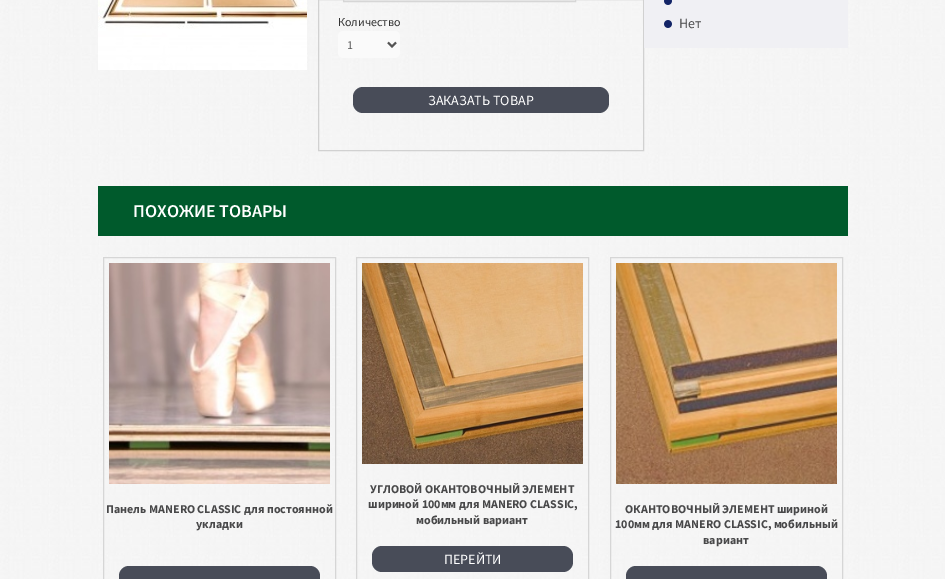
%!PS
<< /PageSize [945 579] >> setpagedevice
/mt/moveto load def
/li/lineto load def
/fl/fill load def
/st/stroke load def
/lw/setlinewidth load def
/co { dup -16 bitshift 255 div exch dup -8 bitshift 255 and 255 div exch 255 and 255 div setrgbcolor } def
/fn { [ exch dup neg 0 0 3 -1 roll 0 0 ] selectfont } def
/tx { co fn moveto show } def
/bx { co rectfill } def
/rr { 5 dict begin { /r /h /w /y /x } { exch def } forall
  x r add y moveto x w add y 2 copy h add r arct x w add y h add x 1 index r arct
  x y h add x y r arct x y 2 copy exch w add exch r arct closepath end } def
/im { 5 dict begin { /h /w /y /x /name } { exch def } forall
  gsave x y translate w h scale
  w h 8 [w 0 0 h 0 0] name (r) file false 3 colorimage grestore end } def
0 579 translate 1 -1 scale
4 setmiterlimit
0 0 945 579 16#FFFFFF bx
(media/1.raw) 0 0 945 579 im
(media/2.raw) 98 0 209 70 im
16#D1D1D1 co
318.5 -.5 325 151 rectstroke
16#D6D6D6 co
343.5 -.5 232 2 rectstroke
16#FAFAFA co
338 31 62 27 5 rr fl
16#555555 co
2 lw
388 42.5 mt 392 46.5 li 396 42.5 li st
16#484C58 co
353 87 256 26 10 rr fl
644 0 204 48 16#F0F0F4 bx
(media/3.raw) 664 0 8 5 im
(media/4.raw) 664 20 8 8 im
98 186 750 50 16#005A2C bx
16#D6D6D6 co
1 lw
103.5 257.5 232 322 rectstroke
(media/5.raw) 109 263 221 221 im
16#484C58 co
119 566 201 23 10 rr fl
16#D6D6D6 co
356.5 257.5 232 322 rectstroke
(media/6.raw) 362 263 221 201 im
16#484C58 co
372 546 201 26 10 rr fl
16#D6D6D6 co
610.5 257.5 232 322 rectstroke
(media/7.raw) 616 263 221 221 im
16#484C58 co
626 566 201 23 10 rr fl
(Количество) 338 26 /SourceSansPro-Regular 12 16#333333 tx
(1) 347 49 /SourceSansPro-Regular 12 16#555555 tx
(ЗАКАЗАТЬ ТОВАР) 428 105 /SourceSansPro-Regular 14 16#FFFFFF tx
(Нет) 679 28 /SourceSansPro-Regular 14 16#484849 tx
(ПОХОЖИЕ ТОВАРЫ) 133 217 /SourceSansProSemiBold-SemiBold 18 16#FFFFFF tx
(Панель MANERO CLASSIC для постоянной) 106 513 /SourceSansPro-Bold 12 16#484849 tx
(укладки) 196 528 /SourceSansPro-Bold 12 16#484849 tx
(УГЛОВОЙ ОКАНТОВОЧНЫЙ ЭЛЕМЕНТ) 370 493 /SourceSansPro-Bold 12 16#484849 tx
(шириной 100мм для MANERO CLASSIC,) 368 508 /SourceSansPro-Bold 12 16#484849 tx
(мобильный вариант) 416 524 /SourceSansPro-Bold 12 16#484849 tx
(ПЕРЕЙТИ) 444 564 /SourceSansPro-Regular 14 16#FFFFFF tx
(ОКАНТОВОЧНЫЙ ЭЛЕМЕНТ шириной) 625 513 /SourceSansPro-Bold 12 16#484849 tx
(100мм для MANERO CLASSIC, мобильный) 615 528 /SourceSansPro-Bold 12 16#484849 tx
(вариант) 703 544 /SourceSansPro-Bold 12 16#484849 tx
showpage
